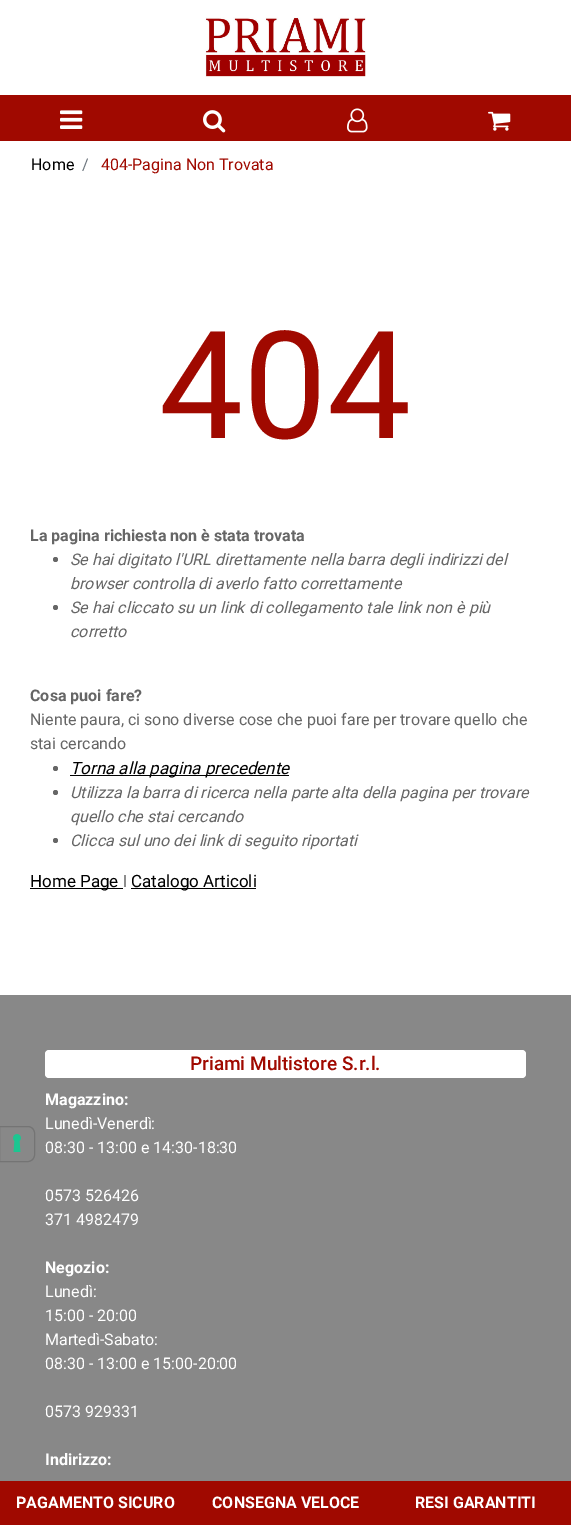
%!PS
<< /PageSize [571 1525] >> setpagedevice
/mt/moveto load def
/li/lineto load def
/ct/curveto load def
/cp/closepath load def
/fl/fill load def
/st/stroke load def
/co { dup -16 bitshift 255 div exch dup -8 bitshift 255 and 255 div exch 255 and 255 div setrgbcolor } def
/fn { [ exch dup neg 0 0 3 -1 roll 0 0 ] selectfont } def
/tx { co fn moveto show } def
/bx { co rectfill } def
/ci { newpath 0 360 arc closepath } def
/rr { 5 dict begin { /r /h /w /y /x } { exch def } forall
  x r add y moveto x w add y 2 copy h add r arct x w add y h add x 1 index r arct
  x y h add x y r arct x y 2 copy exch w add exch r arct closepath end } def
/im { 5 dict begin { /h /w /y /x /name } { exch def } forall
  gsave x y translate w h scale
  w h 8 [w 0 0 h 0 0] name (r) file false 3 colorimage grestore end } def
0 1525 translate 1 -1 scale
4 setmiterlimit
0 0 571 1525 16#FFFFFF bx
(media/1.raw) 205 17 161 60 im
0 95 571 46 16#A00900 bx
(media/2.raw) 60 110 23 19 im
(media/3.raw) 203 110 23 23 im
(media/4.raw) 347 108 21 25 im
(media/5.raw) 488 111 23 20 im
16#666666 co
55.5 559.5 2.5 ci fl
55.5 607.5 2.5 ci fl
55.5 768.5 2.5 ci fl
70 775 219 1 16#000000 bx
16#666666 co
55.5 792.5 2.5 ci fl
55.5 840.5 2.5 ci fl
30 888 93 1 16#000000 bx
131 888 125 1 16#000000 bx
0 995 571 486 16#888888 bx
16#FFFFFF co
45 1050 481 28 4 rr fl
0 1481 571 44 16#A00900 bx
16#747474 co
-.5 1126.5 mt 28 1126.5 li 31.5 1126.5 34.5 1129.5 34.5 1133 ct 34.5 1155 li 34.5 1158.5 31.5 1161.5 28 1161.5 ct -.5 1161.5 li cp st
(media/6.raw) 13 1134 8 18 im
(Home) 31 170 /Roboto-Regular 16 16#000000 tx
(/) 82 170 /Roboto-Regular 16 16#6C757D tx
(404-Pagina Non Trovata) 101 170 /Roboto-Regular 16 16#A00900 tx
(404) 159 438 /Roboto-Regular 150 16#A00900 tx
(La pagina richiesta non è stata trovata) 30 541 /Roboto-Bold 16 16#666666 tx
(Se hai digitato l'URL direttamente nella barra degli indirizzi del) 70 565 /Roboto-Italic 16 16#666666 tx
(browser controlla di averlo fatto correttamente) 70 589 /Roboto-Italic 16 16#666666 tx
(Se hai cliccato su un link di collegamento tale link non è più) 70 613 /Roboto-Italic 16 16#666666 tx
(corretto) 70 637 /Roboto-Italic 16 16#666666 tx
(Cosa puoi fare?) 30 701 /Roboto-Bold 16 16#666666 tx
(Niente paura, ci sono diverse cose che puoi fare per trovare quello che) 30 725 /Roboto-Regular 16 16#666666 tx
(stai cercando) 30 749 /Roboto-Regular 16 16#666666 tx
(Torna alla pagina precedente) 70 774 /Roboto-Italic 17 16#000000 tx
(Utilizza la barra di ricerca nella parte alta della pagina per trovare) 70 798 /Roboto-Italic 16 16#666666 tx
(quello che stai cercando) 70 822 /Roboto-Italic 16 16#666666 tx
(Clicca sul uno dei link di seguito riportati) 70 846 /Roboto-Italic 16 16#666666 tx
(Home Page) 30 887 /Roboto-Regular 17 16#000000 tx
(l) 123 887 /Roboto-Regular 16 16#666666 tx
(Catalogo Articoli) 131 887 /Roboto-Regular 17 16#000000 tx
(Priami Multistore S.r.l.) 190 1070 /Roboto-Medium 19 16#A00900 tx
(Magazzino:) 45 1105 /Roboto-Bold 16 16#FFFFFF tx
(Lunedì-Venerdì:) 45 1129 /Roboto-Regular 16 16#FFFFFF tx
(08:30 - 13:00 e 14:30-18:30) 45 1153 /Roboto-Regular 16 16#FFFFFF tx
(0573 526426) 45 1201 /Roboto-Regular 16 16#FFFFFF tx
(371 4982479) 45 1225 /Roboto-Regular 16 16#FFFFFF tx
(Negozio:) 45 1273 /Roboto-Bold 16 16#FFFFFF tx
(Lunedì:) 45 1297 /Roboto-Regular 16 16#FFFFFF tx
(15:00 - 20:00) 45 1321 /Roboto-Regular 16 16#FFFFFF tx
(Martedì-Sabato:) 45 1345 /Roboto-Regular 16 16#FFFFFF tx
(08:30 - 13:00 e 15:00-20:00) 45 1369 /Roboto-Regular 16 16#FFFFFF tx
(0573 929331) 45 1417 /Roboto-Regular 16 16#FFFFFF tx
(Indirizzo:) 45 1465 /Roboto-Bold 16 16#FFFFFF tx
(PAGAMENTO SICURO) 16 1508 /Roboto-Bold 16 16#FFFFFF tx
(CONSEGNA VELOCE) 212 1508 /Roboto-Bold 16 16#FFFFFF tx
(RESI GARANTITI) 415 1508 /Roboto-Bold 16 16#FFFFFF tx
showpage
